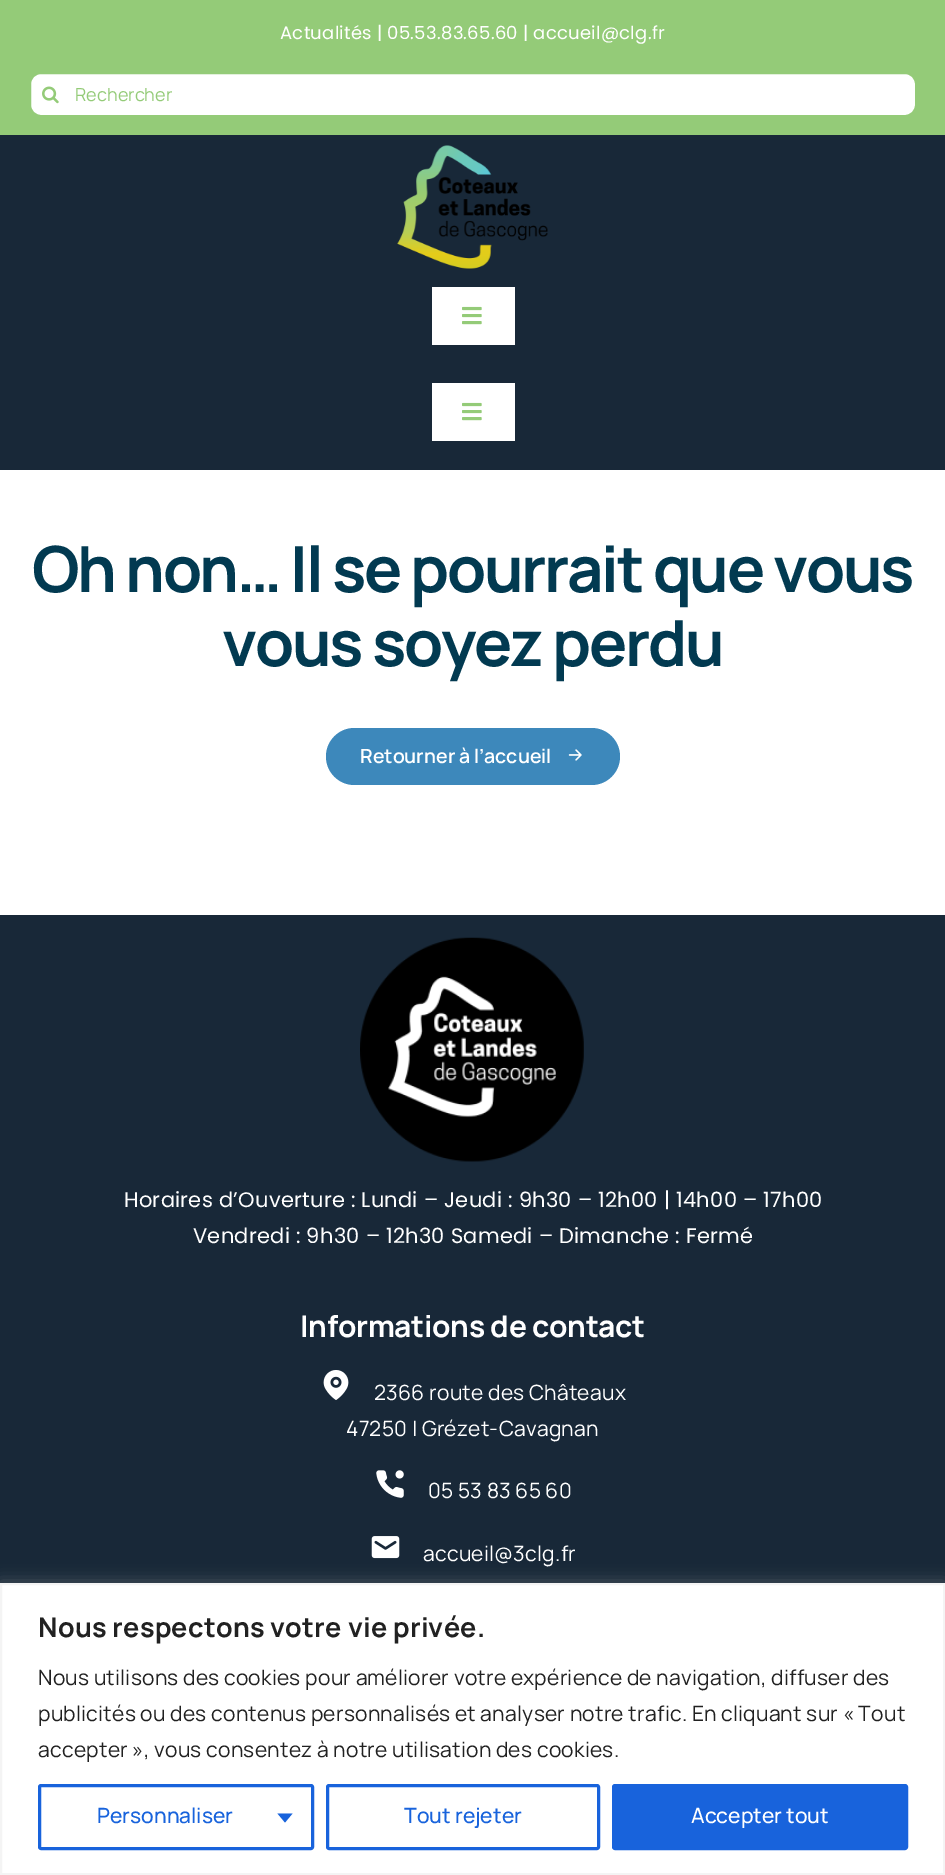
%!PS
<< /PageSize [945 1875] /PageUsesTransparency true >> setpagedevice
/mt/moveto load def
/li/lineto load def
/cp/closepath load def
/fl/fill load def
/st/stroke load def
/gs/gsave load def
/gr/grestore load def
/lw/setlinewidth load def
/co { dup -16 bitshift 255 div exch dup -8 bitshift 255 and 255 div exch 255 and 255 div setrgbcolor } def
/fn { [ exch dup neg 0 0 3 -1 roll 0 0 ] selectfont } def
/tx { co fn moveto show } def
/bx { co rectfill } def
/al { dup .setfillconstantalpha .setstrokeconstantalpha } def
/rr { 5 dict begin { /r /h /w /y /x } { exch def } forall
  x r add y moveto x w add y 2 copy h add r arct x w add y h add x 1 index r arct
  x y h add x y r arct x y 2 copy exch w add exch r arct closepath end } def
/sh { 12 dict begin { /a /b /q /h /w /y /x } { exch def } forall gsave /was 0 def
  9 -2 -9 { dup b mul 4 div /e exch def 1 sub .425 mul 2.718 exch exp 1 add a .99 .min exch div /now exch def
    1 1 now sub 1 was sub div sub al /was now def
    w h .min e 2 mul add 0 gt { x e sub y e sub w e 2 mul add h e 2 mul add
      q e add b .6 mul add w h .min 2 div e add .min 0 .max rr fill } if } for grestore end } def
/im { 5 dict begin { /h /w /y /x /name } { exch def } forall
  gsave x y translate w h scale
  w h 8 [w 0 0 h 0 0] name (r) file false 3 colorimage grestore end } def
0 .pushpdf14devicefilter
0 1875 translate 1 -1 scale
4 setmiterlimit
0 0 945 1875 16#FFFFFF bx
0 0 945 135 16#94CB78 bx
16#FFFFFF co
30 73 886 43 11 rr gs fl gr
16#94CB78 co
2 lw
st
(media/1.raw) 42 86 17 18 im
0 135 945 335 16#182838 bx
(media/2.raw) 397 145 151 124 im
432 287 83 58 16#FFFFFF bx
(media/3.raw) 462 306 20 19 im
432 383 83 58 16#FFFFFF bx
(media/3.raw) 462 402 20 19 im
16#3D88BB co
326 728 294 57 28.5 rr fl
(media/4.raw) 568 749 14 12 im
0 915 945 668 16#182838 bx
(media/5.raw) 360 937 224 225 im
(media/6.raw) 323 1370 26 30 im
(media/7.raw) 376 1470 28 28 im
(media/8.raw) 371 1536 29 23 im
16#ACABAB co
0 1581 945 293 0 7.5 .3 sh
16#FFFFFF co
1 1584 mt 944 1584 li 944 1874 li 1 1874 li cp gs fl gr
16#F4F4F4 co
st
16#1863DC co
3 lw
39.5 1785.5 273 63 1.5 rr st
277.5 1813.5 mt 292.5 1813.5 li 285 1822.5 li cp fl
327.5 1785.5 271 63 1.5 rr st
613.5 1785.5 293 63 1.5 rr gs fl gr
st
/Poppins-Regular 18 fn
16#FFFFFF co
280 39 mt .25 0 (Actualités | 05.53.83.65.60 | accueil@clg.fr) ashow
(Rechercher) 75 101 /Manrope-Regular 18 16#94CB78 tx
/Manrope-Bold 63.5 fn
16#023A51 co
32 592 mt -2.3 0 (Oh non… Il se pourrait que vous) ashow
222 666 mt -2.3 0 (vous soyez perdu) ashow
(Retourner à l’accueil) 360 763 /Manrope-SemiBold 19.5 16#FFFFFF tx
/Poppins-Regular 21 fn
124 1207 mt .25 0 (Horaires d’Ouverture : Lundi – Jeudi : 9h30 – 12h00 | 14h00 – 17h00) ashow
193 1243 mt .25 0 (Vendredi : 9h30 – 12h30 Samedi – Dimanche : Fermé) ashow
/Manrope-Bold 30 fn
300 1337 mt -.3 0 (Informations de contact) ashow
/Manrope-Regular 21 fn
374 1400 mt .25 0 (2366 route des Châteaux) ashow
346 1436 mt .25 0 (47250 | Grézet-Cavagnan) ashow
428 1498 mt .25 0 (05 53 83 65 60) ashow
423 1561 mt .25 0 (accueil@3clg.fr) ashow
/Manrope-Bold 27 fn
16#212121 co
38 1637 mt .25 0 (Nous respectons votre vie privée.) ashow
/Manrope-Regular 21 fn
38 1685 mt .25 0 (Nous utilisons des cookies pour améliorer votre expérience de navigation, diffuser des) ashow
38 1721 mt .25 0 (publicités ou des contenus personnalisés et analyser notre trafic. En cliquant sur « Tout) ashow
38 1757 mt .25 0 (accepter », vous consentez à notre utilisation des cookies.) ashow
(Personnaliser) 97 1823 /Manrope-Medium 21 16#1863DC tx
(Tout rejeter) 404 1823 /Manrope-Medium 21 16#1863DC tx
(Accepter tout) 691 1823 /Manrope-Medium 21 16#FFFFFF tx
.poppdf14devicefilter showpage
